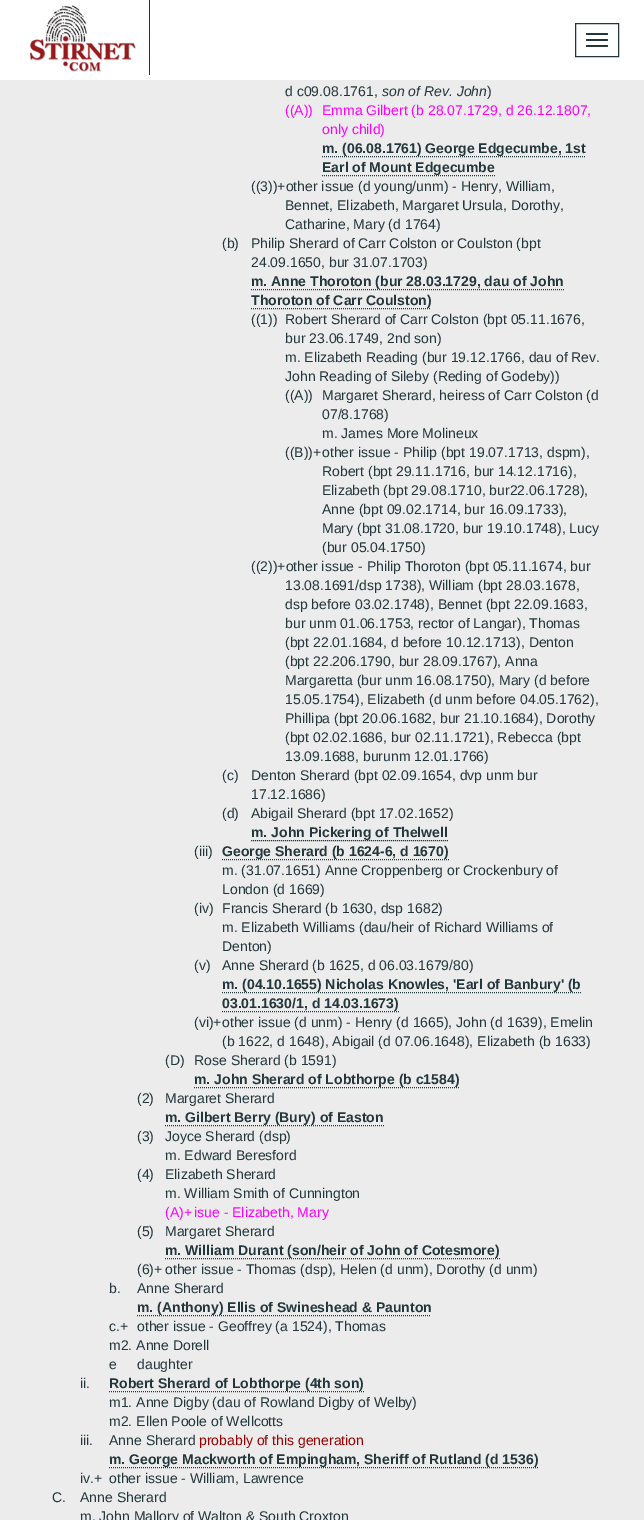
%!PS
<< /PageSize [644 1520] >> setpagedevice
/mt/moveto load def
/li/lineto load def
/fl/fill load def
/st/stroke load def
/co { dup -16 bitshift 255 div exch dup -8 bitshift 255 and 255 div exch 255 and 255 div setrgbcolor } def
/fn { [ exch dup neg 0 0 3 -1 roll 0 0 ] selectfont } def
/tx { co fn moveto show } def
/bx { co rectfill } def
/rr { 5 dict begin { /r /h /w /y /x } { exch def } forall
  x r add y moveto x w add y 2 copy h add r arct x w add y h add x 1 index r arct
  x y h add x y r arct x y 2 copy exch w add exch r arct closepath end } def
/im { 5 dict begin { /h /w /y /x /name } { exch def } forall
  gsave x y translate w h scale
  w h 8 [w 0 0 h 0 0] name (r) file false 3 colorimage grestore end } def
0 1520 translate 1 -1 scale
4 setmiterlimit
0 0 644 1520 16#ECECEC bx
0 0 644 80 16#FFFFFF bx
149 0 1 75 16#990000 bx
(media/1.raw) 30 5 106 67 im
16#23363B co
575.5 23.5 43 33 rectstroke
586 33 22 2 1 rr fl
586 39 22 2 1 rr fl
586 45 22 2 1 rr fl
[1 1] 0 setdash
322 156.5 mt 586 156.5 li st
322 175.5 mt 495 175.5 li st
251 289.5 mt 564 289.5 li st
251 308.5 mt 431 308.5 li st
251 840.5 mt 448 840.5 li st
222 859.5 mt 449 859.5 li st
222 992.5 mt 581 992.5 li st
222 1011.5 mt 399 1011.5 li st
194 1087.5 mt 459 1087.5 li st
165 1125.5 mt 384 1125.5 li st
165 1258.5 mt 500 1258.5 li st
137 1315.5 mt 431 1315.5 li st
109 1391.5 mt 364 1391.5 li st
109 1467.5 mt 538 1467.5 li st
(d c09.08.1761,) 285 96 /LiberationSans-Regular 14 16#23363B tx
(son of Rev. John) 382 96 /LiberationSans-Italic 14 16#23363B tx
(\)) 487 96 /LiberationSans-Regular 14 16#23363B tx
(\(\(A\)\)) 285 115 /LiberationSans-Regular 14 16#FF00FF tx
(Emma Gilbert \(b 28.07.1729, d 26.12.1807,) 322 115 /LiberationSans-Regular 14 16#FF00FF tx
(only child\)) 322 134 /LiberationSans-Regular 14 16#FF00FF tx
(m. \(06.08.1761\) George Edgecumbe, 1st) 322 153 /LiberationSans-Bold 14 16#23363B tx
(Earl of Mount Edgecumbe) 322 172 /LiberationSans-Bold 14 16#23363B tx
(\(\(3\)\)+other issue \(d young/unm\) - Henry, William,) 251 191 /LiberationSans-Regular 14 16#23363B tx
(Bennet, Elizabeth, Margaret Ursula, Dorothy,) 285 210 /LiberationSans-Regular 14 16#23363B tx
(Catharine, Mary \(d 1764\)) 285 229 /LiberationSans-Regular 14 16#23363B tx
(\(b\)) 222 248 /LiberationSans-Regular 14 16#23363B tx
(Philip Sherard of Carr Colston or Coulston \(bpt) 251 248 /LiberationSans-Regular 14 16#23363B tx
(24.09.1650, bur 31.07.1703\)) 251 267 /LiberationSans-Regular 14 16#23363B tx
(m. Anne Thoroton \(bur 28.03.1729, dau of John) 251 286 /LiberationSans-Bold 14 16#23363B tx
(Thoroton of Carr Coulston\)) 251 305 /LiberationSans-Bold 14 16#23363B tx
(\(\(1\)\)) 251 324 /LiberationSans-Regular 14 16#23363B tx
(Robert Sherard of Carr Colston \(bpt 05.11.1676,) 285 324 /LiberationSans-Regular 14 16#23363B tx
(bur 23.06.1749, 2nd son\)) 285 343 /LiberationSans-Regular 14 16#23363B tx
(m. Elizabeth Reading \(bur 19.12.1766, dau of Rev.) 285 362 /LiberationSans-Regular 14 16#23363B tx
(John Reading of Sileby \(Reding of Godeby\)\)) 285 381 /LiberationSans-Regular 14 16#23363B tx
(\(\(A\)\)) 285 400 /LiberationSans-Regular 14 16#23363B tx
(Margaret Sherard, heiress of Carr Colston \(d) 322 400 /LiberationSans-Regular 14 16#23363B tx
(07/8.1768\)) 322 419 /LiberationSans-Regular 14 16#23363B tx
(m. James More Molineux) 322 438 /LiberationSans-Regular 14 16#23363B tx
(\(\(B\)\)+) 285 457 /LiberationSans-Regular 14 16#23363B tx
(other issue - Philip \(bpt 19.07.1713, dspm\),) 322 457 /LiberationSans-Regular 14 16#23363B tx
(Robert \(bpt 29.11.1716, bur 14.12.1716\),) 322 476 /LiberationSans-Regular 14 16#23363B tx
(Elizabeth \(bpt 29.08.1710, bur22.06.1728\),) 322 495 /LiberationSans-Regular 14 16#23363B tx
(Anne \(bpt 09.02.1714, bur 16.09.1733\),) 322 514 /LiberationSans-Regular 14 16#23363B tx
(Mary \(bpt 31.08.1720, bur 19.10.1748\), Lucy) 322 533 /LiberationSans-Regular 14 16#23363B tx
(\(bur 05.04.1750\)) 322 552 /LiberationSans-Regular 14 16#23363B tx
(\(\(2\)\)+other issue - Philip Thoroton \(bpt 05.11.1674, bur) 251 571 /LiberationSans-Regular 14 16#23363B tx
(13.08.1691/dsp 1738\), William \(bpt 28.03.1678,) 285 590 /LiberationSans-Regular 14 16#23363B tx
(dsp before 03.02.1748\), Bennet \(bpt 22.09.1683,) 285 609 /LiberationSans-Regular 14 16#23363B tx
(bur unm 01.06.1753, rector of Langar\), Thomas) 285 628 /LiberationSans-Regular 14 16#23363B tx
(\(bpt 22.01.1684, d before 10.12.1713\), Denton) 285 647 /LiberationSans-Regular 14 16#23363B tx
(\(bpt 22.206.1790, bur 28.09.1767\), Anna) 285 666 /LiberationSans-Regular 14 16#23363B tx
(Margaretta \(bur unm 16.08.1750\), Mary \(d before) 285 685 /LiberationSans-Regular 14 16#23363B tx
(15.05.1754\), Elizabeth \(d unm before 04.05.1762\),) 285 704 /LiberationSans-Regular 14 16#23363B tx
(Phillipa \(bpt 20.06.1682, bur 21.10.1684\), Dorothy) 285 723 /LiberationSans-Regular 14 16#23363B tx
(\(bpt 02.02.1686, bur 02.11.1721\), Rebecca \(bpt) 285 742 /LiberationSans-Regular 14 16#23363B tx
(13.09.1688, burunm 12.01.1766\)) 285 761 /LiberationSans-Regular 14 16#23363B tx
(\(c\)) 222 780 /LiberationSans-Regular 14 16#23363B tx
(Denton Sherard \(bpt 02.09.1654, dvp unm bur) 251 780 /LiberationSans-Regular 14 16#23363B tx
(17.12.1686\)) 251 799 /LiberationSans-Regular 14 16#23363B tx
(\(d\)) 222 818 /LiberationSans-Regular 14 16#23363B tx
(Abigail Sherard \(bpt 17.02.1652\)) 251 818 /LiberationSans-Regular 14 16#23363B tx
(m. John Pickering of Thelwell) 251 837 /LiberationSans-Bold 14 16#23363B tx
(\(iii\)) 194 856 /LiberationSans-Regular 14 16#23363B tx
(George Sherard \(b 1624-6, d 1670\)) 222 856 /LiberationSans-Bold 14 16#23363B tx
(m. \(31.07.1651\) Anne Croppenberg or Crockenbury of) 222 875 /LiberationSans-Regular 14 16#23363B tx
(London \(d 1669\)) 222 894 /LiberationSans-Regular 14 16#23363B tx
(\(iv\)) 194 913 /LiberationSans-Regular 14 16#23363B tx
(Francis Sherard \(b 1630, dsp 1682\)) 222 913 /LiberationSans-Regular 14 16#23363B tx
(m. Elizabeth Williams \(dau/heir of Richard Williams of) 222 932 /LiberationSans-Regular 14 16#23363B tx
(Denton\)) 222 951 /LiberationSans-Regular 14 16#23363B tx
(\(v\)) 194 970 /LiberationSans-Regular 14 16#23363B tx
(Anne Sherard \(b 1625, d 06.03.1679/80\)) 222 970 /LiberationSans-Regular 14 16#23363B tx
(m. \(04.10.1655\) Nicholas Knowles, 'Earl of Banbury' \(b) 222 989 /LiberationSans-Bold 14 16#23363B tx
(03.01.1630/1, d 14.03.1673\)) 222 1008 /LiberationSans-Bold 14 16#23363B tx
(\(vi\)+) 194 1027 /LiberationSans-Regular 14 16#23363B tx
(other issue \(d unm\) - Henry \(d 1665\), John \(d 1639\), Emelin) 222 1027 /LiberationSans-Regular 14 16#23363B tx
(\(b 1622, d 1648\), Abigail \(d 07.06.1648\), Elizabeth \(b 1633\)) 222 1046 /LiberationSans-Regular 14 16#23363B tx
(\(D\)) 165 1065 /LiberationSans-Regular 14 16#23363B tx
(Rose Sherard \(b 1591\)) 194 1065 /LiberationSans-Regular 14 16#23363B tx
(m. John Sherard of Lobthorpe \(b c1584\)) 194 1084 /LiberationSans-Bold 14 16#23363B tx
(\(2\)) 137 1103 /LiberationSans-Regular 14 16#23363B tx
(Margaret Sherard) 165 1103 /LiberationSans-Regular 14 16#23363B tx
(m. Gilbert Berry \(Bury\) of Easton) 165 1122 /LiberationSans-Bold 14 16#23363B tx
(\(3\)) 137 1141 /LiberationSans-Regular 14 16#23363B tx
(Joyce Sherard \(dsp\)) 165 1141 /LiberationSans-Regular 14 16#23363B tx
(m. Edward Beresford) 165 1160 /LiberationSans-Regular 14 16#23363B tx
(\(4\)) 137 1179 /LiberationSans-Regular 14 16#23363B tx
(Elizabeth Sherard) 165 1179 /LiberationSans-Regular 14 16#23363B tx
(m. William Smith of Cunnington) 165 1198 /LiberationSans-Regular 14 16#23363B tx
(\(A\)+) 165 1217 /LiberationSans-Regular 14 16#FF00FF tx
(isue - Elizabeth, Mary) 194 1217 /LiberationSans-Regular 14 16#FF00FF tx
(\(5\)) 137 1236 /LiberationSans-Regular 14 16#23363B tx
(Margaret Sherard) 165 1236 /LiberationSans-Regular 14 16#23363B tx
(m. William Durant \(son/heir of John of Cotesmore\)) 165 1255 /LiberationSans-Bold 14 16#23363B tx
(\(6\)+) 137 1274 /LiberationSans-Regular 14 16#23363B tx
(other issue - Thomas \(dsp\), Helen \(d unm\), Dorothy \(d unm\)) 165 1274 /LiberationSans-Regular 14 16#23363B tx
(b.) 109 1293 /LiberationSans-Regular 14 16#23363B tx
(Anne Sherard) 137 1293 /LiberationSans-Regular 14 16#23363B tx
(m. \(Anthony\) Ellis of Swineshead & Paunton) 137 1312 /LiberationSans-Bold 14 16#23363B tx
(c.+) 109 1331 /LiberationSans-Regular 14 16#23363B tx
(other issue - Geoffrey \(a 1524\), Thomas) 137 1331 /LiberationSans-Regular 14 16#23363B tx
(m2. Anne Dorell) 109 1350 /LiberationSans-Regular 14 16#23363B tx
(e) 109 1369 /LiberationSans-Regular 14 16#23363B tx
(daughter) 137 1369 /LiberationSans-Regular 14 16#23363B tx
(ii.) 80 1388 /LiberationSans-Regular 14 16#23363B tx
(Robert Sherard of Lobthorpe \(4th son\)) 109 1388 /LiberationSans-Bold 14 16#23363B tx
(m1. Anne Digby \(dau of Rowland Digby of Welby\)) 109 1407 /LiberationSans-Regular 14 16#23363B tx
(m2. Ellen Poole of Wellcotts) 109 1426 /LiberationSans-Regular 14 16#23363B tx
(iii.) 80 1445 /LiberationSans-Regular 14 16#23363B tx
(Anne Sherard) 109 1445 /LiberationSans-Regular 14 16#23363B tx
(probably of this generation) 199 1445 /LiberationSans-Regular 14 16#990000 tx
(m. George Mackworth of Empingham, Sheriff of Rutland \(d 1536\)) 109 1464 /LiberationSans-Bold 14 16#23363B tx
(iv.+) 80 1483 /LiberationSans-Regular 14 16#23363B tx
(other issue - William, Lawrence) 109 1483 /LiberationSans-Regular 14 16#23363B tx
(C.) 52 1502 /LiberationSans-Regular 14 16#23363B tx
(Anne Sherard) 80 1502 /LiberationSans-Regular 14 16#23363B tx
(m. John Mallory of Walton & South Croxton) 80 1521 /LiberationSans-Regular 14 16#23363B tx
showpage
